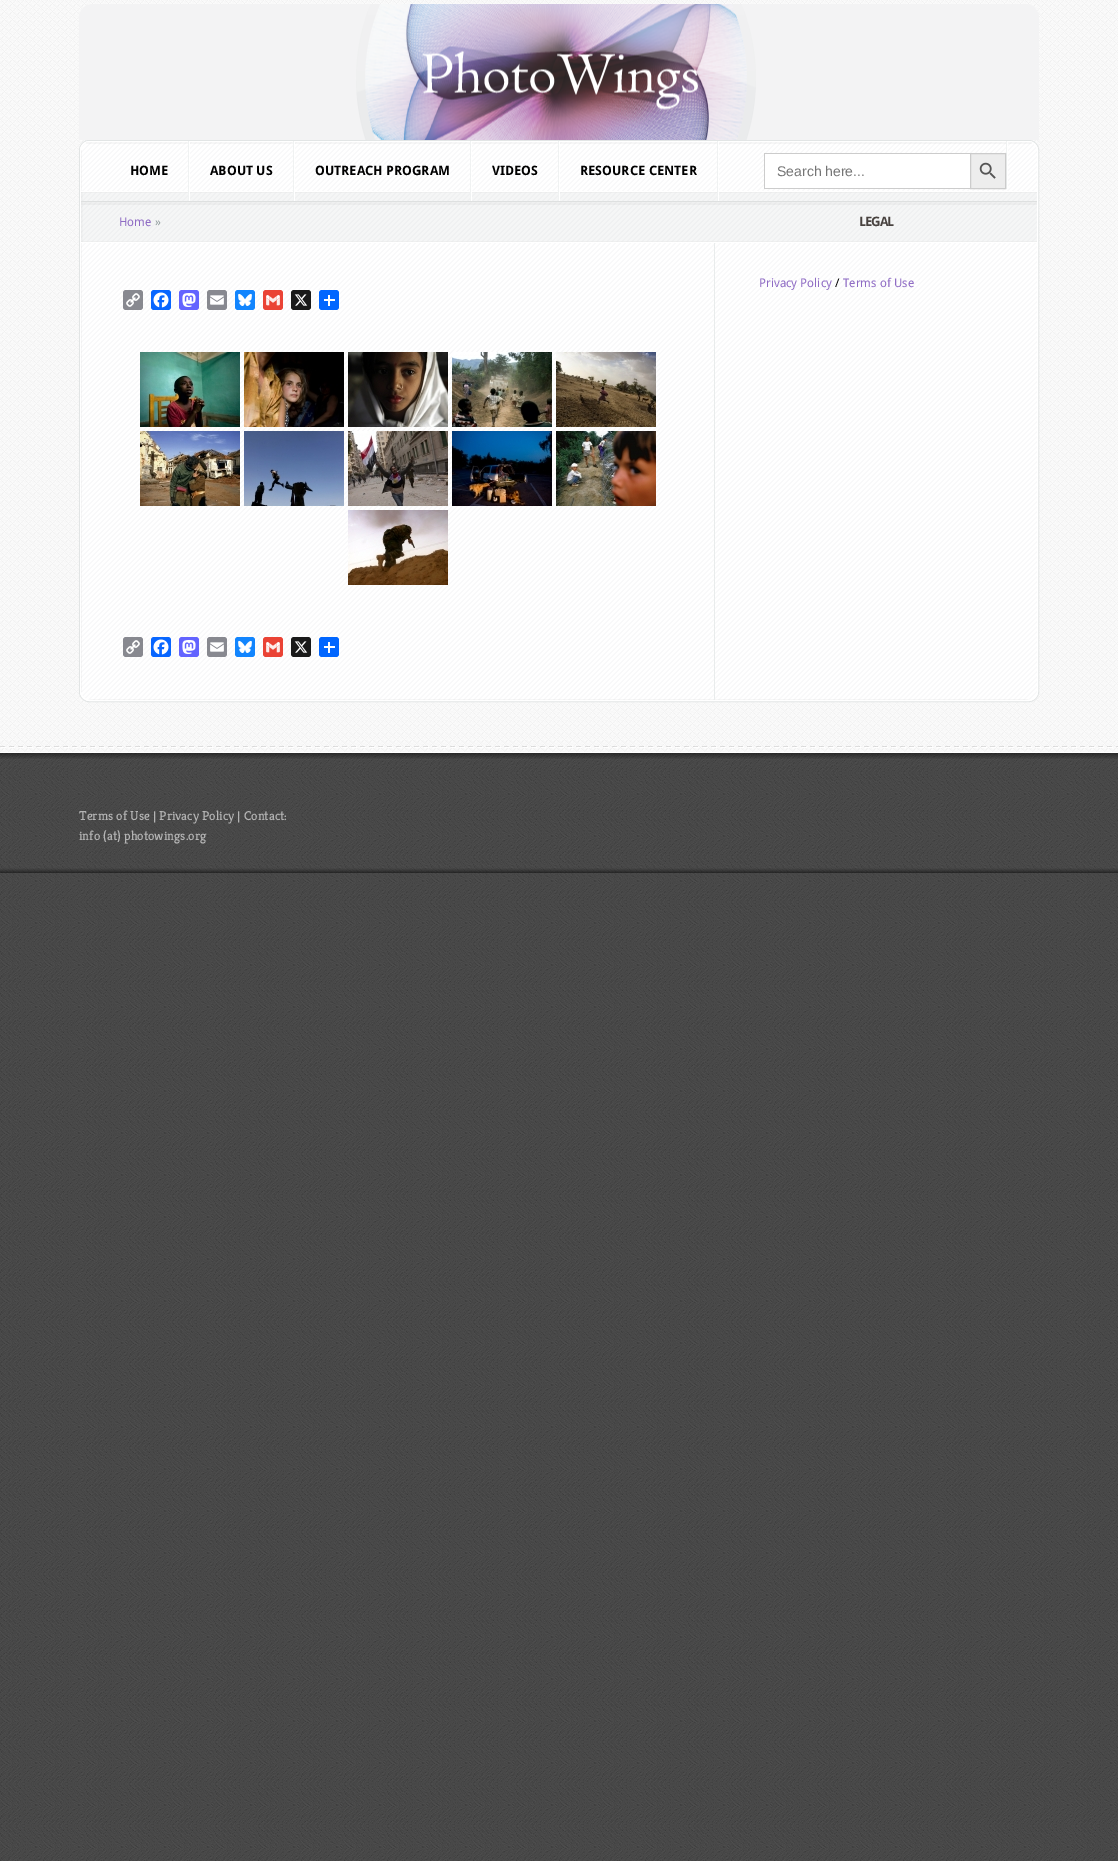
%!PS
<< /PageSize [1118 1861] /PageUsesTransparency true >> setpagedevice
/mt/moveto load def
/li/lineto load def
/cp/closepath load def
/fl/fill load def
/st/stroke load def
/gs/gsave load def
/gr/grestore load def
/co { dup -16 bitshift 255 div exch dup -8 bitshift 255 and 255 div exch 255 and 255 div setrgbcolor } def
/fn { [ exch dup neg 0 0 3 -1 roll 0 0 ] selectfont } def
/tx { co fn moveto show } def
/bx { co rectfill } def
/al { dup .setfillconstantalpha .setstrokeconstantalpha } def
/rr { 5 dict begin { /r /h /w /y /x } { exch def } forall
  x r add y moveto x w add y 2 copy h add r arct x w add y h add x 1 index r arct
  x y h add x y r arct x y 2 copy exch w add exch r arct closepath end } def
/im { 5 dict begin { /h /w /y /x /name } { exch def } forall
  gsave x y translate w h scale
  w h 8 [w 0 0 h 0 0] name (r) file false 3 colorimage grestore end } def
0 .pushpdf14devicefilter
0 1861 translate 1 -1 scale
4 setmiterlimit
0 0 1118 1861 16#FFFFFF bx
(media/1.raw) 0 753 1118 1108 im
(media/2.raw) 0 0 1118 752 im
(media/3.raw) 79 4 960 136 im
16#E2E5E5 co
79.5 140.5 959 561 9.5 rr st
(media/4.raw) 80 141 958 560 im
16#FFFFFF co
80.5 141.5 957 559 9.5 rr st
(media/5.raw) 81 150 1 542 im
0.03 al
86 142 946 2 16#000000 bx
1 al
(media/6.raw) 90 699 938 1 im
(media/7.raw) 81 191 956 10 im
(media/8.raw) 188 141 2 60 im
(media/8.raw) 293 141 2 60 im
(media/8.raw) 470 141 2 60 im
(media/8.raw) 558 141 2 60 im
(media/8.raw) 717 141 2 60 im
(media/9.raw) 1006 141 2 48 im
765 154 205 34 16#FFFFFF bx
764 153 206 1 16#CCCCCC bx
764 188 206 1 16#CCCCCC bx
764 153 1 36 16#CCCCCC bx
16#EDEDED co
970.5 153.5 mt 1005.5 153.5 li 1005.5 188.5 li 970.5 188.5 li cp gs fl gr
16#CCCCCC co
st
(media/10.raw) 979 162 17 17 im
(media/11.raw) 81 202 634 41 im
(media/30.raw) 715 202 322 41 im
0.03 al
81 203 956 2 16#000000 bx
1 al
81 201 956 1 16#DEE0E0 bx
714 243 1 457 16#E9ECEC bx
16#888990 co
123 290 20 20 3 rr fl
(media/12.raw) 126 293 14 14 im
16#0866FF co
151 290 20 20 3 rr fl
(media/13.raw) 153 292 16 16 im
16#6364FF co
179 290 20 20 3 rr fl
(media/14.raw) 182 293 14 14 im
16#888990 co
207 290 20 20 3 rr fl
(media/15.raw) 210 295 14 10 im
16#1285FE co
235 290 20 20 3 rr fl
(media/16.raw) 238 293 14 13 im
16#EA4335 co
263 290 20 20 3 rr fl
(media/17.raw) 266 295 14 11 im
16#1A1A1A co
291 290 20 20 3 rr fl
(media/18.raw) 294 294 14 12 im
16#0166FF co
319 290 20 20 3 rr fl
328 295 2 11 16#FFFFFF bx
324 299 11 2 16#FFFFFF bx
(media/19.raw) 140 352 100 75 im
(media/20.raw) 244 352 100 75 im
(media/21.raw) 348 352 100 75 im
(media/22.raw) 452 352 100 75 im
(media/23.raw) 556 352 100 75 im
(media/24.raw) 140 431 100 75 im
(media/25.raw) 244 431 100 75 im
(media/26.raw) 348 431 100 75 im
(media/27.raw) 452 431 100 75 im
(media/28.raw) 556 431 100 75 im
(media/29.raw) 348 510 100 75 im
16#888990 co
123 637 20 20 3 rr fl
(media/12.raw) 126 640 14 14 im
16#0866FF co
151 637 20 20 3 rr fl
(media/13.raw) 153 639 16 16 im
16#6364FF co
179 637 20 20 3 rr fl
(media/14.raw) 182 640 14 14 im
16#888990 co
207 637 20 20 3 rr fl
(media/15.raw) 210 642 14 10 im
16#1285FE co
235 637 20 20 3 rr fl
(media/16.raw) 238 640 14 13 im
16#EA4335 co
263 637 20 20 3 rr fl
(media/17.raw) 266 642 14 11 im
16#1A1A1A co
291 637 20 20 3 rr fl
(media/18.raw) 294 641 14 12 im
16#0166FF co
319 637 20 20 3 rr fl
328 642 2 11 16#FFFFFF bx
324 646 11 2 16#FFFFFF bx
(media/31.raw) 0 746 1118 2 im
(media/32.raw) 0 754 1118 119 im
(media/33.raw) 0 753 1118 6 im
(media/34.raw) 0 868 1118 5 im
(HOME) 130 175 /DroidSans-Bold 13 16#000000 tx
(ABOUT US) 210 175 /DroidSans-Bold 13 16#000000 tx
(OUTREACH PROGRAM) 315 175 /DroidSans-Bold 13 16#000000 tx
(VIDEOS) 492 175 /DroidSans-Bold 13 16#000000 tx
(RESOURCE CENTER) 580 175 /DroidSans-Bold 13 16#000000 tx
(Search here...) 777 176 /LiberationSans-Regular 14 16#757575 tx
(Home) 119 226 /DroidSans-Regular 12 16#8F6CC4 tx
(») 155 226 /DroidSans-Regular 12 16#929E9E tx
/DroidSans-Bold 13 fn
16#48423F co
859 226 mt -1 0 (LEGAL) ashow
(Privacy Policy) 759 287 /DroidSans-Regular 12 16#8F6CC4 tx
(/) 835 287 /DroidSans-Regular 12 16#000000 tx
(Terms of Use) 843 287 /DroidSans-Regular 12 16#8F6CC4 tx
(Terms of Use | Privacy Policy | Contact:) 79 820 /Kreon-Regular 13 16#B4B4B4 tx
(info \(at\) photowings.org) 79 840 /Kreon-Regular 13 16#B4B4B4 tx
.poppdf14devicefilter showpage
